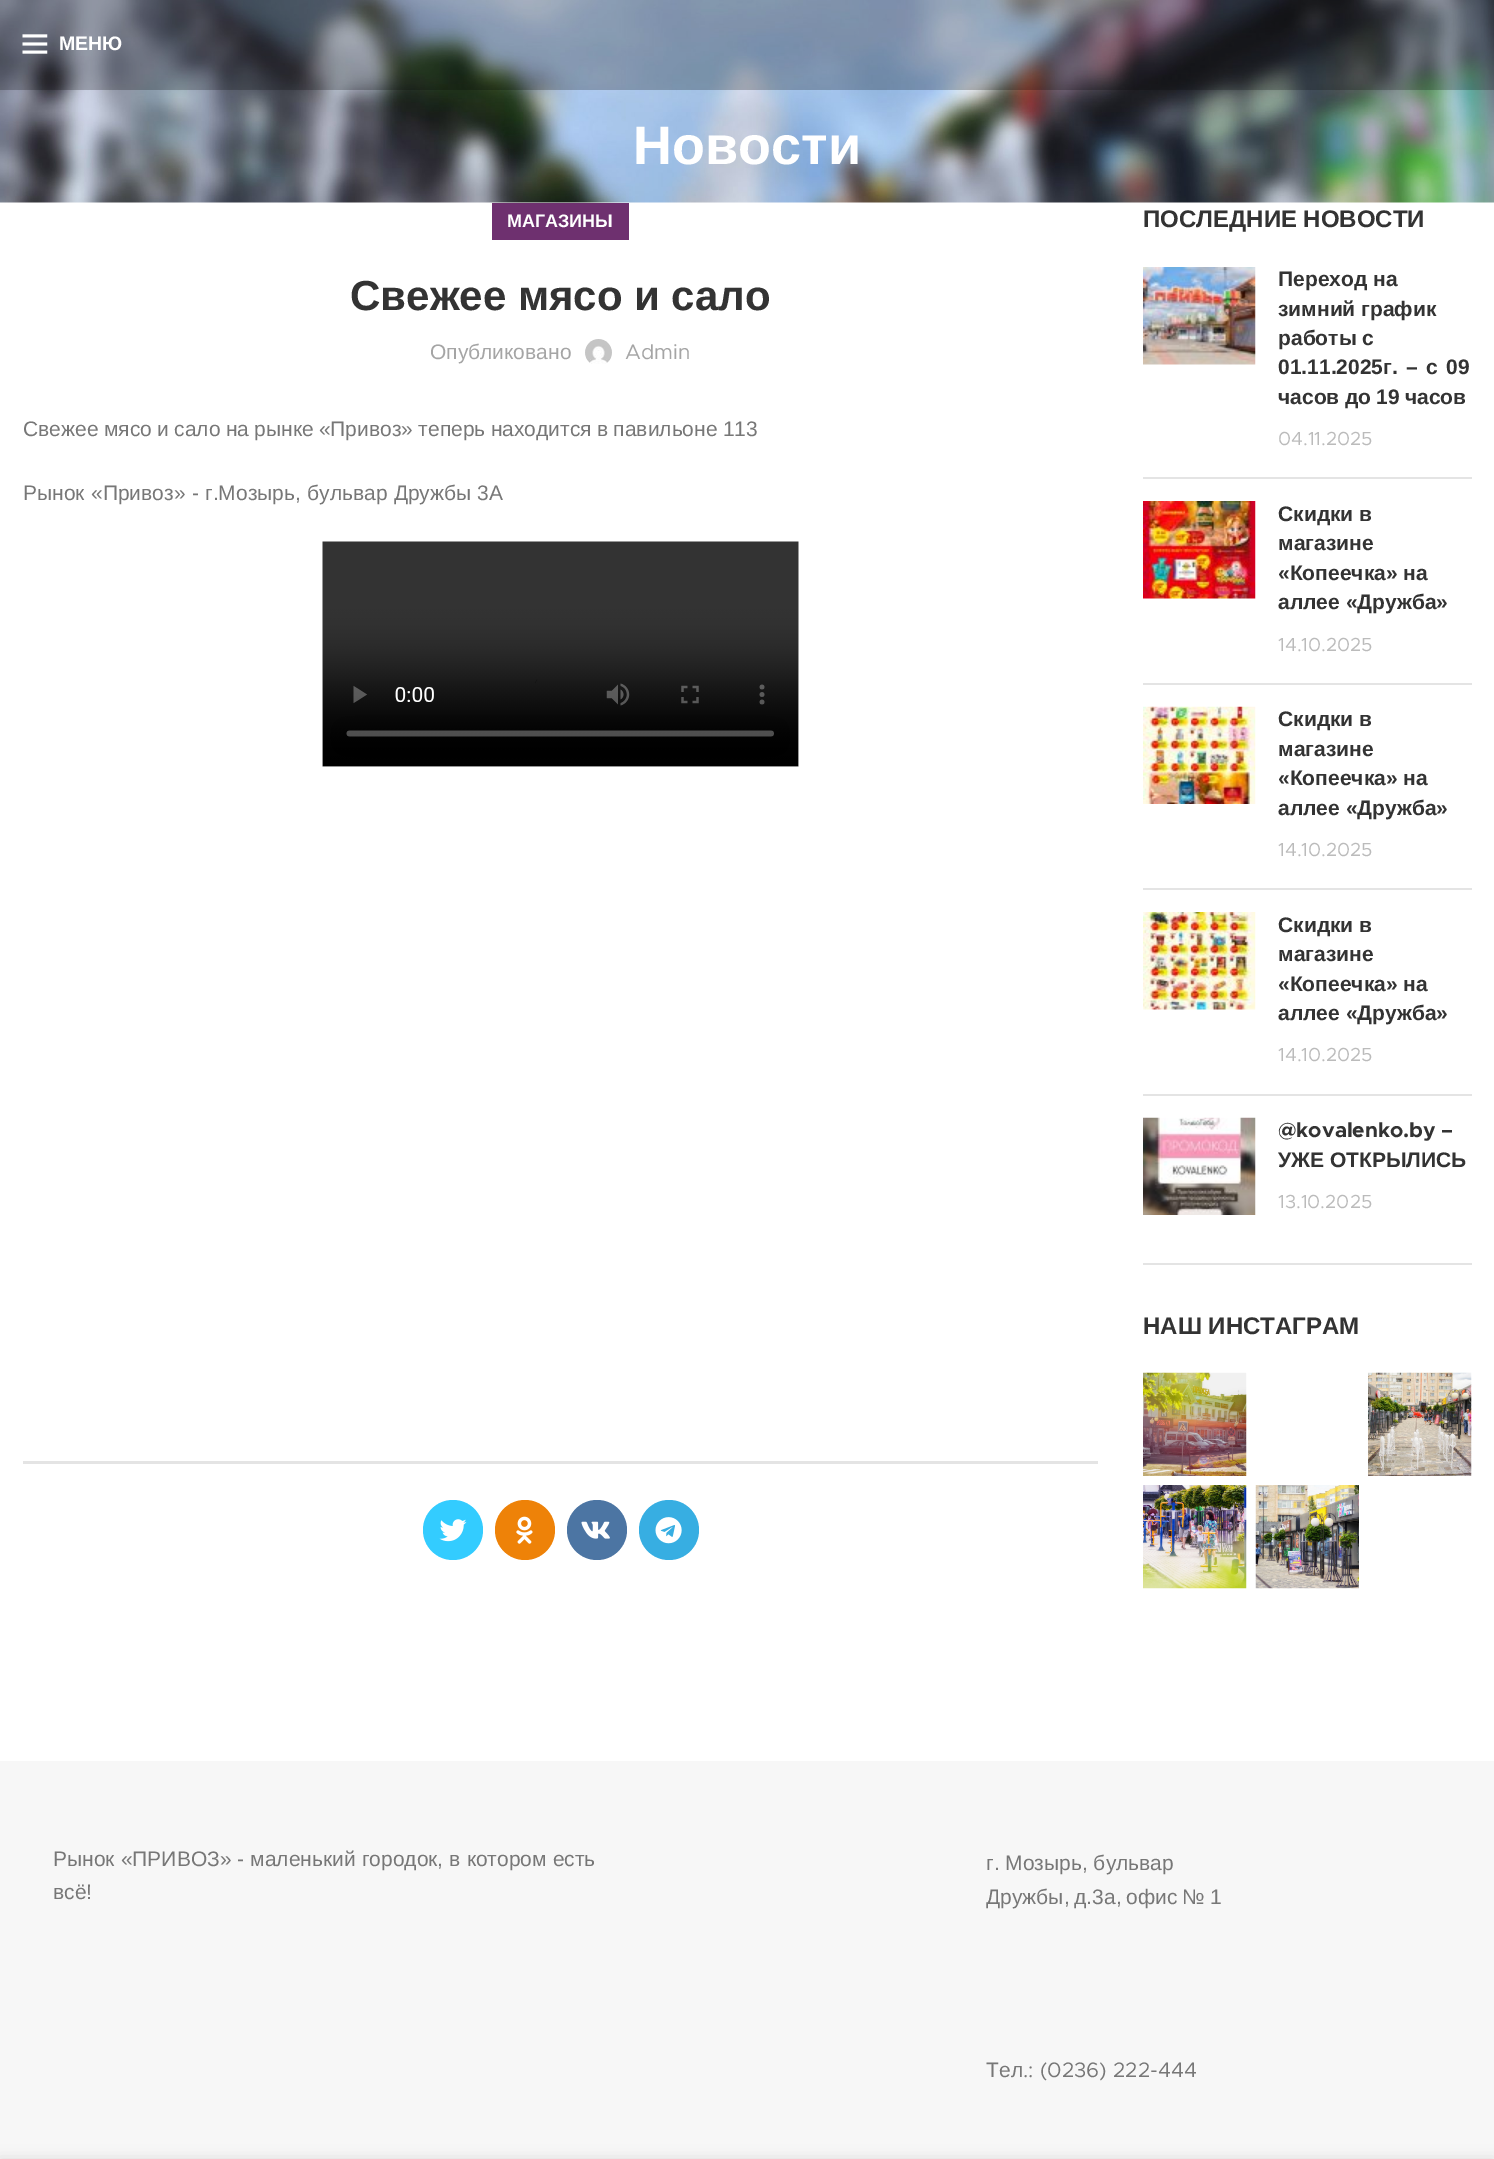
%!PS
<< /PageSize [1494 2159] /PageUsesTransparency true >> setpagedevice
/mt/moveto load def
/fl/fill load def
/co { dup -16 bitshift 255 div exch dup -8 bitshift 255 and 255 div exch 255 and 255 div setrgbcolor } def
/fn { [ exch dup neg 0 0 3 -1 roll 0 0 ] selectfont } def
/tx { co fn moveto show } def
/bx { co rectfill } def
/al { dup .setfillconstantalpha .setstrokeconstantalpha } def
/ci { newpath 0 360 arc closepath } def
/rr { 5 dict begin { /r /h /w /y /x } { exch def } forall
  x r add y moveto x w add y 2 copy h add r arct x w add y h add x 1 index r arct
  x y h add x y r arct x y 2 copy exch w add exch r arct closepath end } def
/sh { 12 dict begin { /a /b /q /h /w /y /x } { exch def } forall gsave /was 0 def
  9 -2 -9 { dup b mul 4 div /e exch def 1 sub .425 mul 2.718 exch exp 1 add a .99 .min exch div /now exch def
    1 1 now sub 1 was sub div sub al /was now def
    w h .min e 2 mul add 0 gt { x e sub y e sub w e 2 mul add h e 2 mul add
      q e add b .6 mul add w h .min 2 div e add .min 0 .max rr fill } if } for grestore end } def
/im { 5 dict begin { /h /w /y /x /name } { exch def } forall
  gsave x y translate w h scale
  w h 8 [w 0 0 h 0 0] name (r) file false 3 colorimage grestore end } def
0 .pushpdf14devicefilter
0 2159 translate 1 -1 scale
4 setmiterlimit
0 0 1494 2159 16#FFFFFF bx
(media/2.raw) 0 0 1494 203 im
0.25 al
0 0 1494 90 16#040404 bx
1 al
(media/1.raw) 22 34 26 20 im
492 203 137 37 16#6E306F bx
(media/3.raw) 585 339 27 25 im
(media/4.raw) 322 541 477 226 im
23 1461 1075 3 16#E4E4E4 bx
16#33CCFF co
453 1530 30 ci fl
(media/5.raw) 439 1519 28 23 im
16#EE8208 co
525 1530 30 ci fl
(media/6.raw) 516 1516 17 28 im
16#4C75A3 co
597 1530 30 ci fl
(media/7.raw) 581 1521 29 18 im
16#37AEE2 co
669 1530 30 ci fl
(media/8.raw) 655 1517 27 27 im
1143 1263 329 2 16#E4E4E4 bx
1143 477 329 2 16#E4E4E4 bx
(media/9.raw) 1143 267 113 98 im
1143 683 329 2 16#E4E4E4 bx
(media/10.raw) 1143 501 113 98 im
1143 888 329 2 16#E4E4E4 bx
(media/11.raw) 1143 706 113 98 im
1143 1094 329 2 16#E4E4E4 bx
(media/12.raw) 1143 912 113 98 im
(media/13.raw) 1143 1117 113 98 im
(media/14.raw) 1143 1372 104 104 im
(media/15.raw) 1368 1372 104 104 im
(media/16.raw) 1143 1485 104 104 im
(media/17.raw) 1255 1485 104 104 im
0 1761 1494 398 16#F7F7F7 bx
16#000000 co
0 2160 1494 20 0 7 .14 sh
(МЕНЮ) 59 50 /LiberationSans-Bold 19.5 16#FFFFFF tx
(Новости) 633 164 /LiberationSans-Bold 54 16#FFFFFF tx
(МАГАЗИНЫ) 507 227 /LiberationSans-Bold 18 16#FFFFFF tx
(Свежее мясо и сало) 350 310 /LiberationSans-Bold 42 16#333333 tx
(Опубликовано) 430 359 /LiberationSans-Regular 21 16#A5A5A5 tx
(Admin) 625 359 /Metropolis-Regular 21 16#A5A5A5 tx
/LiberationSans-Regular 21 fn
16#777777 co
23 436 mt -.5 0 32 (Свежее мясо и сало на рынке «Привоз» теперь находится в павильоне 113) widthshow
23 500 mt .5 0 32 (Рынок «Привоз» - г.Мозырь, бульвар Дружбы 3А) widthshow
(ПОСЛЕДНИЕ НОВОСТИ) 1143 227 /LiberationSans-Bold 24 16#333333 tx
(Переход на) 1278 286 /LiberationSans-Bold 21 16#333333 tx
(зимний график) 1278 316 /LiberationSans-Bold 21 16#333333 tx
(работы с) 1278 345 /LiberationSans-Bold 21 16#333333 tx
1278 374 mt 2.5 0 32 (01.11.2025г. – с 09) widthshow
1278 404 mt -.5 0 32 (часов до 19 часов) widthshow
(04.11.2025) 1278 445 /Metropolis-Regular 19 16#BBBBBB tx
(Скидки в) 1278 521 /LiberationSans-Bold 21 16#333333 tx
(магазине) 1278 550 /LiberationSans-Bold 21 16#333333 tx
(«Копеечка» на) 1278 580 /LiberationSans-Bold 21 16#333333 tx
(аллее «Дружба») 1278 609 /LiberationSans-Bold 21 16#333333 tx
(14.10.2025) 1278 651 /Metropolis-Regular 19 16#BBBBBB tx
(Скидки в) 1278 726 /LiberationSans-Bold 21 16#333333 tx
(магазине) 1278 756 /LiberationSans-Bold 21 16#333333 tx
(«Копеечка» на) 1278 785 /LiberationSans-Bold 21 16#333333 tx
(аллее «Дружба») 1278 815 /LiberationSans-Bold 21 16#333333 tx
(14.10.2025) 1278 856 /Metropolis-Regular 19 16#BBBBBB tx
(Скидки в) 1278 932 /LiberationSans-Bold 21 16#333333 tx
(магазине) 1278 961 /LiberationSans-Bold 21 16#333333 tx
(«Копеечка» на) 1278 991 /LiberationSans-Bold 21 16#333333 tx
(аллее «Дружба») 1278 1020 /LiberationSans-Bold 21 16#333333 tx
(14.10.2025) 1278 1061 /Metropolis-Regular 19 16#BBBBBB tx
(@kovalenko.by –) 1278 1137 /Metropolis-Bold 21 16#333333 tx
(УЖЕ ОТКРЫЛИСЬ) 1278 1167 /LiberationSans-Bold 21 16#333333 tx
(13.10.2025) 1278 1208 /Metropolis-Regular 19 16#BBBBBB tx
(НАШ ИНСТАГРАМ) 1143 1334 /LiberationSans-Bold 24 16#333333 tx
/LiberationSans-Regular 21 fn
16#777777 co
53 1866 mt .25 0 32 (Рынок «ПРИВОЗ» - маленький городок, в котором есть) widthshow
(всё!) 53 1899 /LiberationSans-Regular 21 16#777777 tx
(г. Мозырь, бульвар) 986 1870 /LiberationSans-Regular 21 16#777777 tx
986 1904 mt -1 0 32 (Дружбы, д.3а, офис № 1) widthshow
(Тел) 986 2077 /LiberationSans-Regular 21 16#777777 tx
(.: \(0236\) 222-444) 1023 2077 /Metropolis-Regular 21 16#777777 tx
.poppdf14devicefilter showpage
